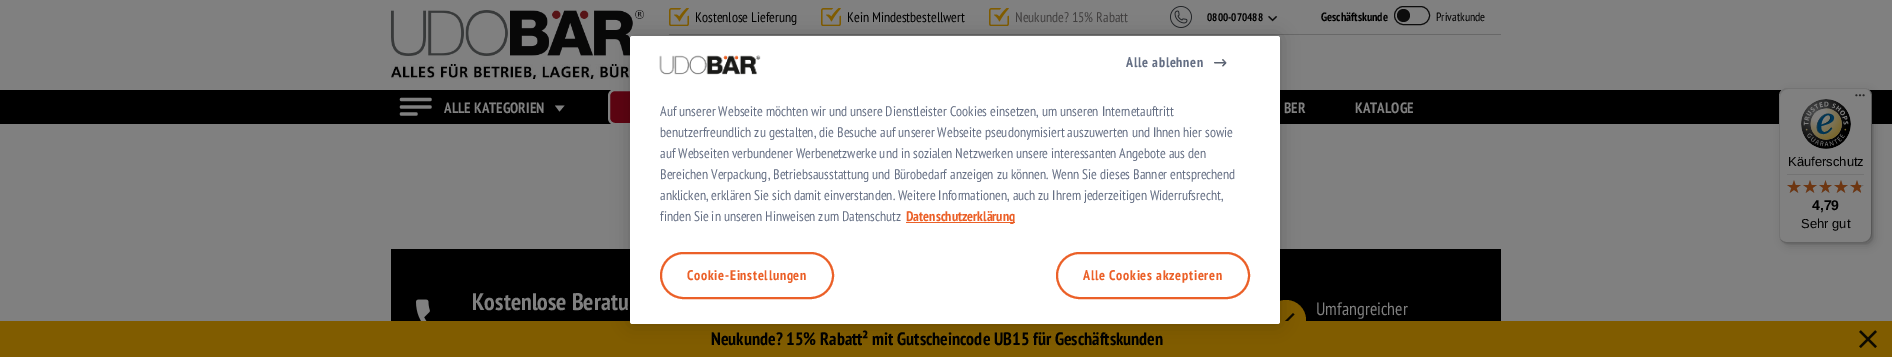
%!PS
<< /PageSize [1892 357] /PageUsesTransparency true >> setpagedevice
/mt/moveto load def
/li/lineto load def
/ct/curveto load def
/cp/closepath load def
/fl/fill load def
/st/stroke load def
/gs/gsave load def
/gr/grestore load def
/lw/setlinewidth load def
/co { dup -16 bitshift 255 div exch dup -8 bitshift 255 and 255 div exch 255 and 255 div setrgbcolor } def
/fn { [ exch dup neg 0 0 3 -1 roll 0 0 ] selectfont } def
/tx { co fn moveto show } def
/bx { co rectfill } def
/al { dup .setfillconstantalpha .setstrokeconstantalpha } def
/ci { newpath 0 360 arc closepath } def
/rr { 5 dict begin { /r /h /w /y /x } { exch def } forall
  x r add y moveto x w add y 2 copy h add r arct x w add y h add x 1 index r arct
  x y h add x y r arct x y 2 copy exch w add exch r arct closepath end } def
/sh { 12 dict begin { /a /b /q /h /w /y /x } { exch def } forall gsave /was 0 def
  9 -2 -9 { dup b mul 4 div /e exch def 1 sub .425 mul 2.718 exch exp 1 add a .99 .min exch div /now exch def
    1 1 now sub 1 was sub div sub al /was now def
    w h .min e 2 mul add 0 gt { x e sub y e sub w e 2 mul add h e 2 mul add
      q e add b .6 mul add w h .min 2 div e add .min 0 .max rr fill } if } for grestore end } def
/im { 5 dict begin { /h /w /y /x /name } { exch def } forall
  gsave x y translate w h scale
  w h 8 [w 0 0 h 0 0] name (r) file false 3 colorimage grestore end } def
0 .pushpdf14devicefilter
0 357 translate 1 -1 scale
4 setmiterlimit
0 0 1892 357 16#808080 bx
0 90 1892 34 16#000000 bx
16#5C0411 co
609 90 180 34 6 rr gs fl gr
16#808080 co
2 lw
st
611 89 176 1 16#808080 bx
(media/1.raw) 391 10 253 46 im
(media/2.raw) 391 64 239 15 im
669 34 832 1 16#686868 bx
(media/3.raw) 669 8 20 18 im
(media/3.raw) 821 8 20 18 im
(media/3.raw) 989 8 20 18 im
(media/4.raw) 1170 6 22 22 im
(media/5.raw) 1268 16 10 6 im
16#0D0D0D co
1 lw
1394.5 6.5 35 18 9 rr st
1403.5 15.5 6.5 ci fl
16#808080 co
3.3 lw
1 setlinecap
401.5 114 mt 416 114 li 401.5 107 mt 430 107 li 401.5 99.5 mt 430 99.5 li st
555 105.5 mt 559.5 111.5 li 564.5 105.5 li cp fl
391 249 1110 72 16#000000 bx
16#805C00 co
1286 320 20 ci fl
16#0D0900 co
1282.5 323.5 mt 1293 313 li 1294.5 314.5 li 1282.5 326.5 li 1277 320.5 li 1278.5 319.5 li cp fl
0 321 1892 36 16#805C00 bx
16#000000 co
630 36 650 288 2.5 9 .2 sh
16#FFFFFF co
630 36 650 288 2.5 rr fl
(media/6.raw) 1214 59 13 8 im
16#EB6028 co
2 lw
0 setlinecap
661 253 172 45 22.5 rr st
1057 253 192 45 22.5 rr st
(media/7.raw) 659 55 102 20 im
906 222 109 1 16#EB6028 bx
16#000000 co
1782 91 93 155 8 4 .15 sh
1780 89 93 155 8 1 .15 sh
16#808080 co
1779 88 93 155 8 rr fl
0.1 al
16#000000 co
1788 89 mt 1865 89 li 1867 89 1869 90 1871 92 ct 1869 90 1867 88 1864 88 ct 1787 88 li 1783 88 1779 92 1779 96 ct 1779 235 li 1779 238 1781 240 1783 242 ct 1781 240 1780 238 1780 236 ct 1780 97 li 1780 93 1784 89 1788 89 ct cp fl
0.2 al
1780 239 mt 1782 241 1784 243 1787 243 ct 1864 243 li 1868 243 1872 239 1872 235 ct 1872 96 li 1872 93 1870 91 1868 89 ct 1870 91 1871 93 1871 95 ct 1871 234 li 1871 238 1867 242 1863 242 ct 1786 242 li 1784 242 1782 241 1780 239 ct cp fl
16#191919 co
1781 240 mt 1782 242 1785 243 1787 243 ct 1864 243 li 1868 243 1872 239 1872 235 ct 1872 96 li 1872 94 1871 91 1869 90 ct 1870 91 1871 93 1871 95 ct 1871 234 li 1871 239 1868 242 1863 242 ct 1786 242 li 1784 242 1782 241 1781 240 ct cp fl
1 al
(media/8.raw) 1855 94 10 3 im
0.3 al
16#808080 co
1781 240 mt 1782 242 1785 243 1787 243 ct 1864 243 li 1868 243 1872 239 1872 235 ct 1872 234 li 1872 239 1868 242 1864 242 ct 1786 242 li 1784 242 1782 241 1781 240 ct cp fl
1 al
(media/9.raw) 1801 99 50 50 im
1787 174 77 1 16#737373 bx
(media/10.raw) 1787 180 14 13 im
(media/10.raw) 1803 180 14 13 im
(media/11.raw) 1819 180 13 13 im
(media/10.raw) 1834 180 14 13 im
(media/10.raw) 1850 180 14 13 im
(media/12.raw) 1787 180 14 13 im
(media/12.raw) 1803 180 14 13 im
(media/13.raw) 1819 180 13 13 im
(media/12.raw) 1834 180 14 13 im
(media/14.raw) 1850 180 11 13 im
(media/15.raw) 416 299 14 22 im
(media/16.raw) 1859 330 18 18 im
(Kostenlose Lieferung) 695 22 /PTSansNarrow-Regular 14 16#000000 tx
(Kein Mindestbestellwert) 847 22 /PTSansNarrow-Regular 14 16#000000 tx
(Neukunde? 15% Rabatt) 1015 22 /PTSansNarrow-Regular 14 16#413F3F tx
(0800-070488) 1207 21 /PTSansNarrow-Bold 11 16#000000 tx
(Geschäftskunde) 1321 21 /PTSansNarrow-Bold 12 16#000000 tx
(Privatkunde) 1436 21 /PTSansNarrow-Regular 12 16#000000 tx
(ALLE KATEGORIEN) 444 113 /PTSansNarrow-Bold 15 16#808080 tx
(BER) 1284 113 /PTSansNarrow-Bold 15 16#808080 tx
(KATALOGE) 1355 113 /PTSansNarrow-Bold 15 16#808080 tx
/PTSansNarrow-Bold 14 fn
16#656F84 co
1126 67 mt .7 0 (Alle ablehnen) ashow
16#EB6028 co
687 280 mt .7 0 (Cookie-Einstellungen) ashow
1083 280 mt .7 0 (Alle Cookies akzeptieren) ashow
(Auf unserer Webseite möchten wir und unsere Dienstleister Cookies einsetzen, um unseren Internetauftritt) 660 116 /PTSansNarrow-Regular 14 16#656F84 tx
(benutzerfreundlich zu gestalten, die Besuche auf unserer Webseite pseudonymisiert auszuwerten und Ihnen hier sowie) 660 137 /PTSansNarrow-Regular 14 16#656F84 tx
(auf Webseiten verbundener Werbenetzwerke und in sozialen Netzwerken unsere interessanten Angebote aus den) 660 158 /PTSansNarrow-Regular 14 16#656F84 tx
(Bereichen Verpackung, Betriebsausstattung und Bürobedarf anzeigen zu können. Wenn Sie dieses Banner entsprechend) 660 179 /PTSansNarrow-Regular 14 16#656F84 tx
(anklicken, erklären Sie sich damit einverstanden. Weitere Informationen, auch zu Ihrem jederzeitigen Widerrufsrecht,) 660 200 /PTSansNarrow-Regular 14 16#656F84 tx
(finden Sie in unseren Hinweisen zum Datenschutz) 660 221 /PTSansNarrow-Regular 14 16#656F84 tx
(Datenschutzerklärung) 906 221 /PTSansNarrow-Bold 14 16#EB6028 tx
(Käuferschutz) 1788 166 /LiberationSans-Regular 13 16#000000 tx
(4,79) 1812 210 /LiberationSans-Bold 14 16#000000 tx
(Sehr gut) 1801 228 /LiberationSans-Regular 13 16#000000 tx
(Kostenlose Beratu) 472 310 /PTSansNarrow-Bold 24 16#808080 tx
(Umfangreicher) 1316 315 /PTSansNarrow-Regular 18 16#808080 tx
(Neukunde? 15% Rabatt² mit Gutscheincode UB15 für Geschäftskunden) 711 345 /PTSansNarrow-Bold 18 16#000000 tx
.poppdf14devicefilter showpage
